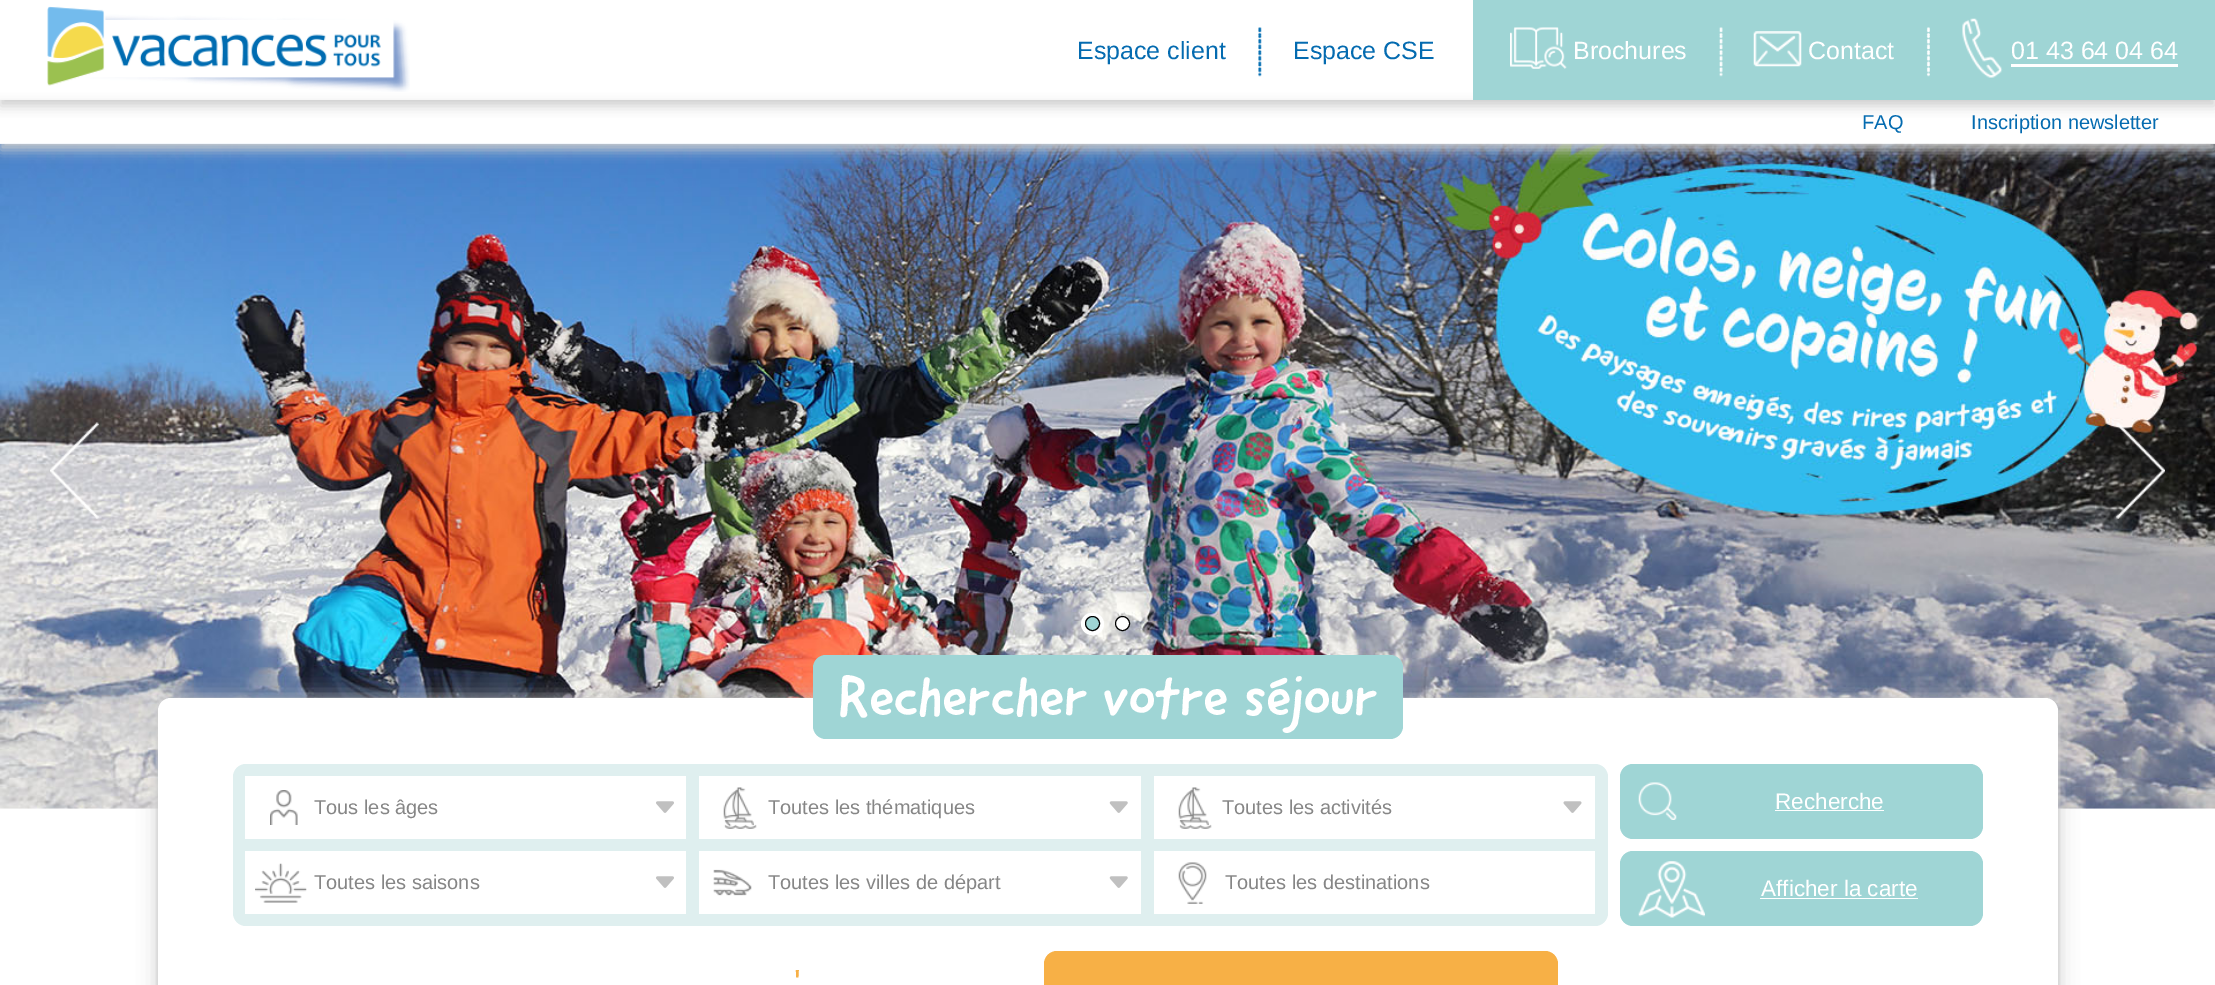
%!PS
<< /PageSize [2215 985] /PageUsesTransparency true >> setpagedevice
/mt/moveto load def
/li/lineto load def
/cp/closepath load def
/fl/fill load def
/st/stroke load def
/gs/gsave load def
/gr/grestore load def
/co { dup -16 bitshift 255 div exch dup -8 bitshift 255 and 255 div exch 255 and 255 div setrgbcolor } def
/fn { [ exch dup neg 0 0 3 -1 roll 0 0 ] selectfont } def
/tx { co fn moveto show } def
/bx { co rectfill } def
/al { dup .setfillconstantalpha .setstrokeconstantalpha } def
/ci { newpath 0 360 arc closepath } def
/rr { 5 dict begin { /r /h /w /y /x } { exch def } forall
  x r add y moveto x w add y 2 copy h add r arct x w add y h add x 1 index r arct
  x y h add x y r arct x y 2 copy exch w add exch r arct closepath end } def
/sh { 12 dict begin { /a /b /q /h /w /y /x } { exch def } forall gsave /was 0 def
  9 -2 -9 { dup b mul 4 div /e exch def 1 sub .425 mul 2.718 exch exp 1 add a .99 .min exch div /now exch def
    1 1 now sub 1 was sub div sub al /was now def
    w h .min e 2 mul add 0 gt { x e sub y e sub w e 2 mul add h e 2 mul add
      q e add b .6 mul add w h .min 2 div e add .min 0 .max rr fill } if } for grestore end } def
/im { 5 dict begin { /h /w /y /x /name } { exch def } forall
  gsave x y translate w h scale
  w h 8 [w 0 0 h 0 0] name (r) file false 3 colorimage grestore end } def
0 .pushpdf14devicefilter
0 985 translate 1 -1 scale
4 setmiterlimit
0 0 2215 985 16#FFFFFF bx
gs
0 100 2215 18 rectclip
16#CCCCCC co
0 6 2215 100 0 6 1 sh
gr
(media/8.raw) 0 143 2215 666 im
gs
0 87 mt 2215 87 li 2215 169 li 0 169 li cp 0 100 mt 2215 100 li 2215 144 li 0 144 li cp eoclip newpath
16#CCCCCC co
0 106 2215 44 0 6 1 sh
gr
(media/1.raw) 47 6 363 86 im
(media/2.raw) 1258 27 4 50 im
1473 0 742 100 16#9FD5D5 bx
(media/3.raw) 1510 27 57 42 im
(media/4.raw) 1719 27 4 50 im
(media/5.raw) 1753 31 49 36 im
(media/6.raw) 1926 27 4 50 im
(media/7.raw) 1962 18 41 60 im
2011 64 167 3 16#FFFFFF bx
(media/9.raw) 50 422 49 97 im
(media/10.raw) 2116 422 49 97 im
1081 613 23 22 11 rr fl
16#9FD5D5 co
1092.5 623.5 7 ci gs fl gr
16#000000 co
st
16#FFFFFF co
1122.5 623.5 7 ci gs fl gr
16#000000 co
st
16#CCCCCC co
158 700 1900 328 13 10 1 sh
158 700 1900 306 13 2.5 1 sh
16#FFFFFF co
158 698 1900 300 13 rr fl
16#9FD5D5 co
813 655 590 84 13 rr fl
16#DFEFEF co
233 764 1375 162 13 rr fl
245 776 441 63 16#FFFFFF bx
(media/11.raw) 270 790 28 35 im
(media/12.raw) 656 801 18 12 im
699 776 442 63 16#FFFFFF bx
(media/13.raw) 723 787 34 42 im
(media/14.raw) 1109 801 19 12 im
1154 776 441 63 16#FFFFFF bx
(media/15.raw) 1178 787 34 42 im
(media/16.raw) 1563 801 19 12 im
245 851 441 63 16#FFFFFF bx
(media/17.raw) 255 863 52 40 im
(media/12.raw) 656 876 18 12 im
699 851 442 63 16#FFFFFF bx
(media/18.raw) 713 869 39 27 im
(media/14.raw) 1109 876 19 12 im
1154 851 441 63 16#FFFFFF bx
(media/19.raw) 1178 862 29 42 im
16#9FD5D5 co
1620 764 363 75 13 rr fl
(media/20.raw) 1638 782 39 38 im
1775 810 109 1 16#FFFFFF bx
16#9FD5D5 co
1620 851 363 75 13 rr fl
(media/21.raw) 1638 861 67 57 im
1760 898 158 1 16#FFFFFF bx
16#F7B046 co
1044 951 514 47 13 rr fl
(Espace client) 1077 59 /LiberationSans-Regular 25 16#046BB0 tx
(Espace CSE) 1293 59 /LiberationSans-Regular 25 16#046BB0 tx
(Brochures) 1573 59 /LiberationSans-Regular 25 16#FFFFFF tx
(Contact) 1808 59 /LiberationSans-Regular 25 16#FFFFFF tx
(01 43 64 04 64) 2011 59 /LiberationSans-Regular 25 16#FFFFFF tx
(FAQ) 1862 129 /LiberationSans-Regular 20 16#046BB0 tx
(Inscription newsletter) 1971 129 /LiberationSans-Regular 20 16#046BB0 tx
(Rechercher votre séjour) 838 716 /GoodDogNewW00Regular-Regular 56.25 16#FFFFFF tx
(Tous les âges) 314 814 /LiberationSans-Regular 20 16#868686 tx
(Toutes les thématiques) 768 814 /LiberationSans-Regular 20 16#868686 tx
(Toutes les activités) 1222 814 /LiberationSans-Regular 20 16#868686 tx
(Toutes les saisons) 314 889 /LiberationSans-Regular 20 16#868686 tx
(Toutes les villes de départ) 768 889 /LiberationSans-Regular 20 16#868686 tx
(Toutes les destinations) 1225 889 /LiberationSans-Regular 20 16#868686 tx
(Recherche) 1775 809 /LiberationSans-Regular 22.5 16#FFFFFF tx
(Afficher la carte) 1761 896 /LiberationSans-Regular 22.5 16#FFFFFF tx
(') 794 994 /LiberationSans-Regular 35 16#F7B046 tx
.poppdf14devicefilter showpage
